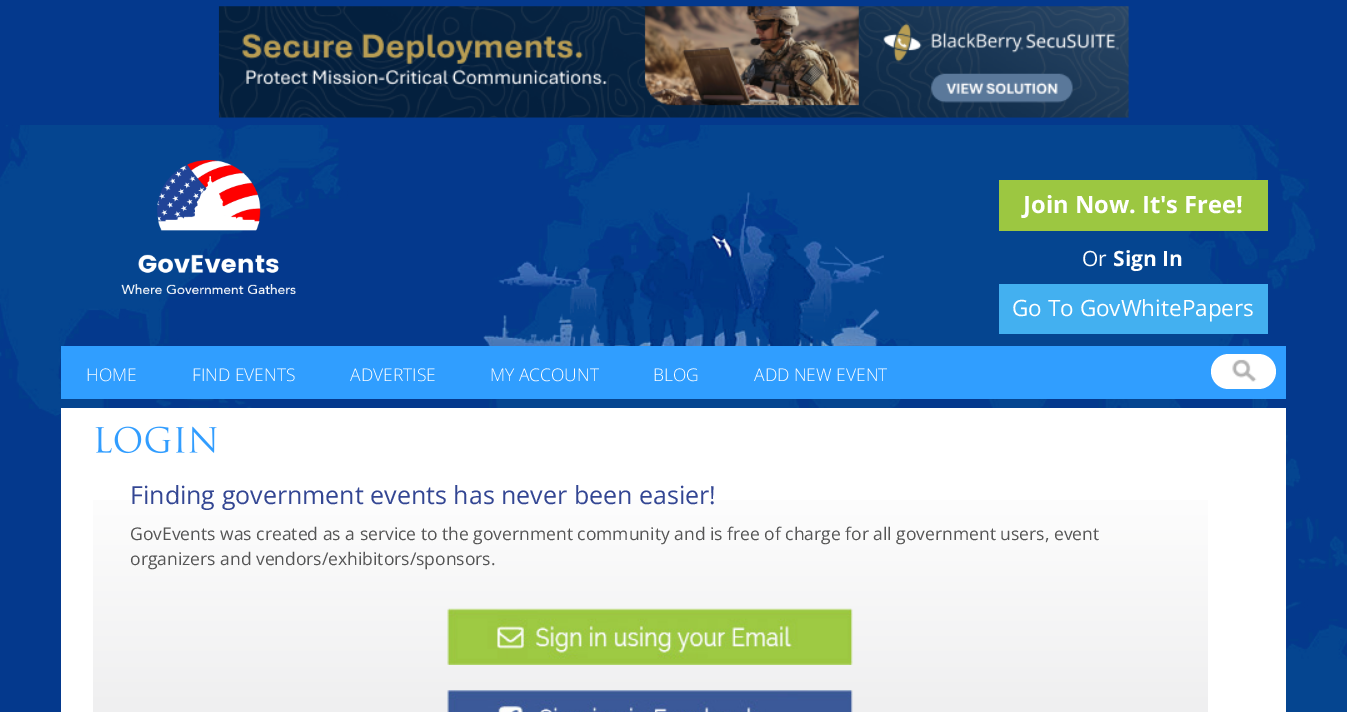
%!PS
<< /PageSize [1347 712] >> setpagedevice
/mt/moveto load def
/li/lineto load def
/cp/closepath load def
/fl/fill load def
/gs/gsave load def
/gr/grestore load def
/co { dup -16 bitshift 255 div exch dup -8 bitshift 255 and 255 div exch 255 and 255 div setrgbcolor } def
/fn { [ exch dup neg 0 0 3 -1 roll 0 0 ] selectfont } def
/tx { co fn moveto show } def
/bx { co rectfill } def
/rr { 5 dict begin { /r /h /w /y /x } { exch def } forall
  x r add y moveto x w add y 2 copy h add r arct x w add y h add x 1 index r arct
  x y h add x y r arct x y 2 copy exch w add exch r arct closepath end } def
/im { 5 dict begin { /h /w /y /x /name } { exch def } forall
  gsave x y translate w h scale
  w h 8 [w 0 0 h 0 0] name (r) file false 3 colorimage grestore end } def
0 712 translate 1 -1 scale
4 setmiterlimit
0 0 1347 712 16#04398D bx
(media/1.raw) 0 125 1347 587 im
(media/2.raw) 218 6 911 112 im
(media/3.raw) 483 192 401 154 im
(media/4.raw) 121 160 175 134 im
999 180 269 51 16#9CC741 bx
999 284 269 50 16#43B0F0 bx
61 346 1225 53 16#309EFF bx
16#FFFFFF co
1211 354 65 35 17.5 rr fl
(media/5.raw) 1232 359 25 23 im
61 408 1225 304 16#FFFFFF bx
(media/6.raw) 95 426 122 28 im
gs 93 500 mt 1208 500 li 1208 712 li 93 712 li cp clip newpath
<< /ShadingType 2 /ColorSpace /DeviceRGB /Coords [650 462 650 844] /Extend [true true] /Function << /FunctionType 2 /Domain [0 1] /C0 [1 1 1] /C1 [.902 .906 .91] /N 1 >> >> shfill gr
(media/7.raw) 447 608 406 57 im
(media/8.raw) 447 690 406 22 im
(Join Now. It's Free!) 1023 213 /OpenSans-Bold 23.75 16#FFFFFF tx
(Or) 1082 266 /OpenSans-Regular 21 16#FFFFFF tx
(Sign In) 1113 266 /OpenSans-Bold 21 16#FFFFFF tx
(Go To GovWhitePapers) 1012 316 /OpenSans-Regular 22.5 16#FFFFFF tx
(HOME) 86 381 /OpenSans-Light 17.5 16#FFFFFF tx
(FIND EVENTS) 192 381 /OpenSans-Light 17.5 16#FFFFFF tx
(ADVERTISE) 350 381 /OpenSans-Light 17.5 16#FFFFFF tx
(MY ACCOUNT) 490 381 /OpenSans-Light 17.5 16#FFFFFF tx
(BLOG) 653 381 /OpenSans-Light 17.5 16#FFFFFF tx
(ADD NEW EVENT) 754 381 /OpenSans-Light 17.5 16#FFFFFF tx
(Finding government events has never been easier!) 130 504 /OpenSans-Regular 25 16#334693 tx
(GovEvents was created as a service to the government community and is free of charge for all government users, event) 130 540 /OpenSans-Regular 17.5 16#555555 tx
(organizers and vendors/exhibitors/sponsors.) 130 565 /OpenSans-Regular 17.5 16#555555 tx
showpage
